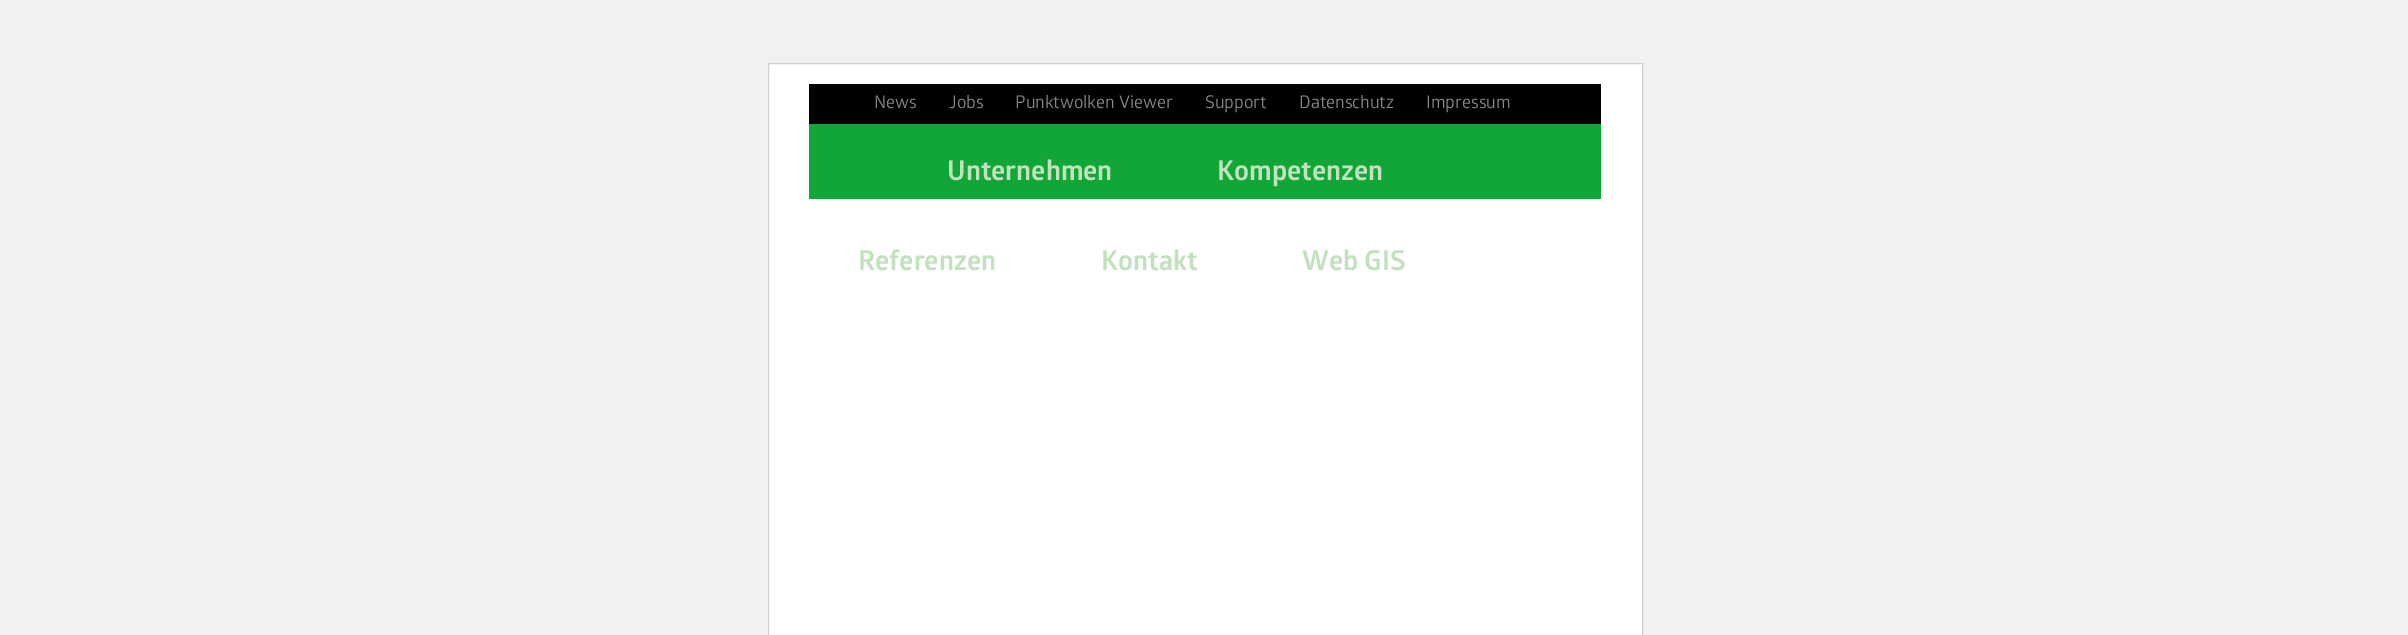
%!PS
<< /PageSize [2408 635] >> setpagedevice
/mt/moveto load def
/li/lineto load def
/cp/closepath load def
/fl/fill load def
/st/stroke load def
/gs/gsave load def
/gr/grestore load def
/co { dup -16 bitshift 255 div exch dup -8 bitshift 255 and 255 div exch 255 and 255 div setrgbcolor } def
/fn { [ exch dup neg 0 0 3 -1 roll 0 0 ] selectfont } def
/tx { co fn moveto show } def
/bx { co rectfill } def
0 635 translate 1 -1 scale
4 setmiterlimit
0 0 2408 635 16#F1F1F1 bx
16#FFFFFF co
768.5 63.5 mt 1642.5 63.5 li 1642.5 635.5 li 768.5 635.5 li cp gs fl gr
16#CCD0D4 co
st
809 84 792 40 16#000000 bx
809 124 792 75 16#12A537 bx
(News) 874 108 /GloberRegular-Regular 17.5 16#878786 tx
(Jobs) 949 108 /GloberRegular-Regular 17.5 16#878786 tx
(Punktwolken Viewer) 1015 108 /GloberRegular-Regular 17.5 16#878786 tx
(Support) 1205 108 /GloberRegular-Regular 17.5 16#878786 tx
(Datenschutz) 1299 108 /GloberRegular-Regular 17.5 16#878786 tx
(Impressum) 1426 108 /GloberRegular-Regular 17.5 16#878786 tx
(Unternehmen) 947 180 /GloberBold-Bold 27.5 16#C1E2BD tx
(Kompetenzen) 1217 180 /GloberBold-Bold 27.5 16#C1E2BD tx
(Referenzen) 858 270 /GloberBold-Bold 27.5 16#C1E2BD tx
(Kontakt) 1101 270 /GloberBold-Bold 27.5 16#C1E2BD tx
(Web GIS) 1302 270 /GloberBold-Bold 27.5 16#C1E2BD tx
showpage
